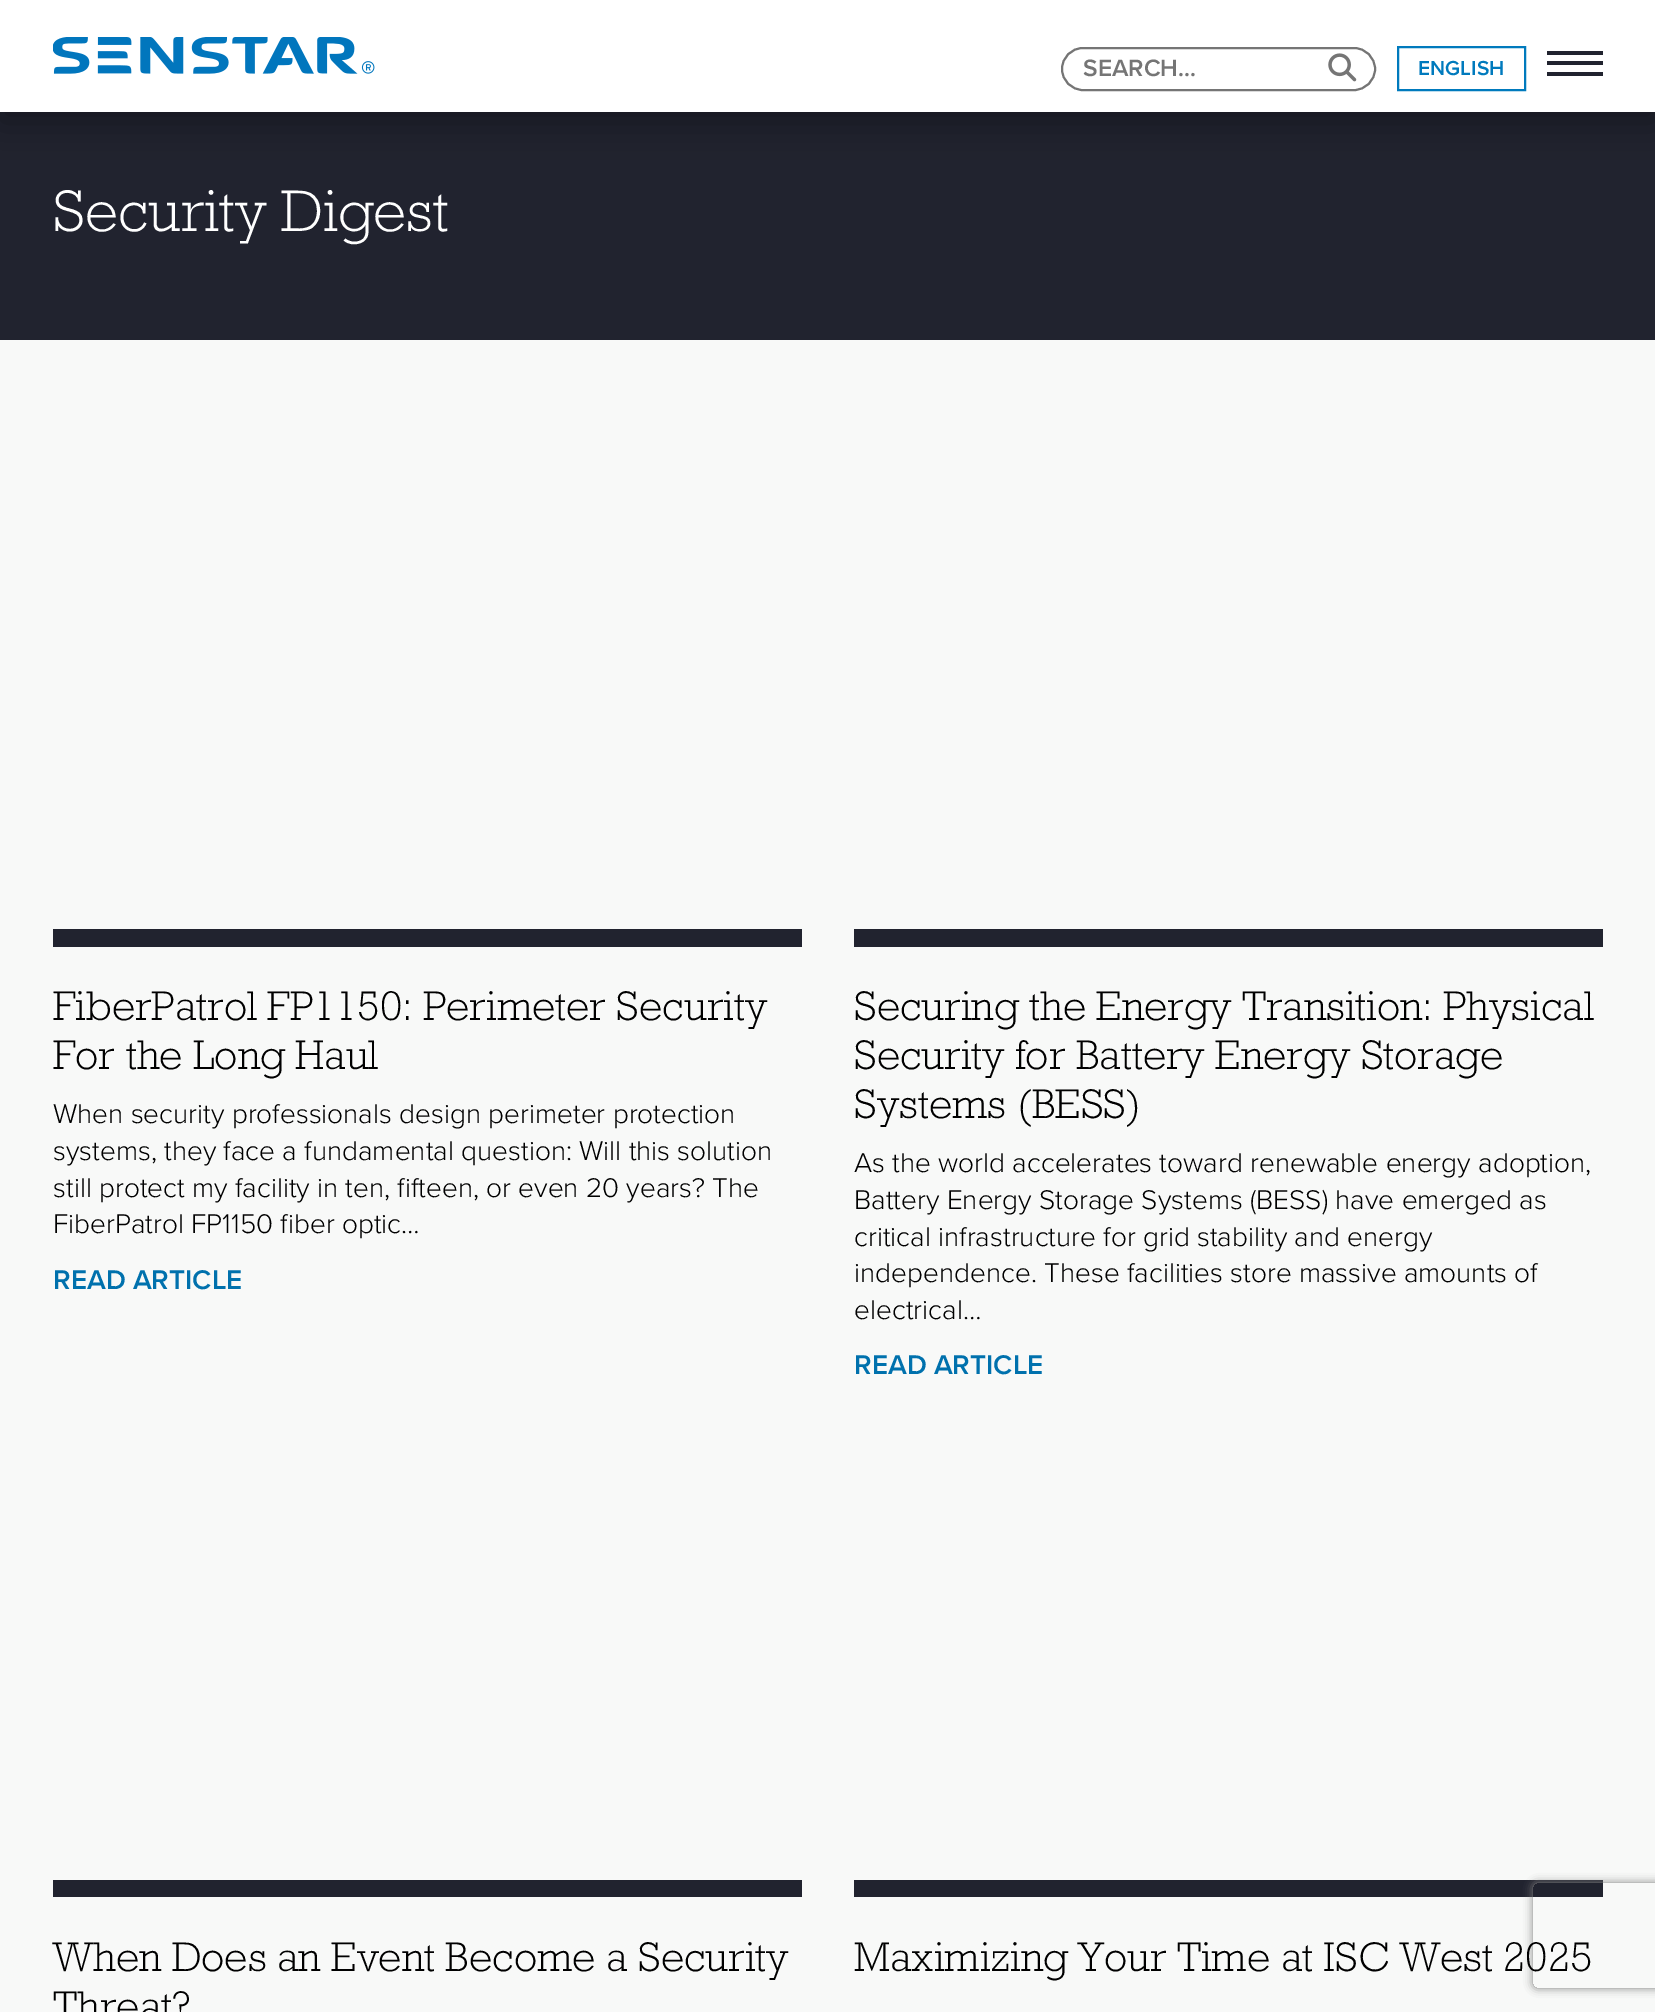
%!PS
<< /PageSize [1655 2012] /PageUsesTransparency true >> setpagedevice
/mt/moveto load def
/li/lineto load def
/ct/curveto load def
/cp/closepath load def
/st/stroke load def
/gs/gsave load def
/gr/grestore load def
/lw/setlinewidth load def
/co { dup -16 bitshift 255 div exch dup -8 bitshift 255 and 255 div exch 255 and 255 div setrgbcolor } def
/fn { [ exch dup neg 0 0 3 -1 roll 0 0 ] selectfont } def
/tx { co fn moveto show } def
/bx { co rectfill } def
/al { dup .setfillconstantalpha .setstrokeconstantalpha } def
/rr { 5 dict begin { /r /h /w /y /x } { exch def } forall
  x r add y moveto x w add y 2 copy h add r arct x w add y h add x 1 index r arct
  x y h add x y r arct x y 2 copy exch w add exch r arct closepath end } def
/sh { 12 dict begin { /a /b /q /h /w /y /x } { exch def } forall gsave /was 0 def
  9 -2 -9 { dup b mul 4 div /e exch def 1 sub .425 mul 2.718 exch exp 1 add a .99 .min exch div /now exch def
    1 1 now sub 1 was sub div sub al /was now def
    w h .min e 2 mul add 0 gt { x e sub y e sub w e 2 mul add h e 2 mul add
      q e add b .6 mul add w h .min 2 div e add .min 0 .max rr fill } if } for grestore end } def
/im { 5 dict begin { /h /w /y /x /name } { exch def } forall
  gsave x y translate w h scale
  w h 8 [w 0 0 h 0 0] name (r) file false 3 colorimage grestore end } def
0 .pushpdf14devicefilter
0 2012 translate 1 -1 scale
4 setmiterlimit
0 0 1655 2012 16#F8F9F8 bx
0 112 1655 228 16#21232F bx
16#000000 co
0 9 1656 112 0 17.5 .35 sh
0 0 1655 112 16#FFFFFF bx
(media/1.raw) 53 37 322 37 im
16#757575 co
2 lw
1062 48 313 42 21 rr st
(media/2.raw) 1328 53 29 29 im
16#007ABD co
1398 47 127 43 rectstroke
1547 61 56 4 16#21232F bx
1547 51 56 4 16#21232F bx
1547 72 56 4 16#21232F bx
53 929 749 18 16#21232F bx
854 929 749 18 16#21232F bx
53 1880 749 17 16#21232F bx
854 1880 749 17 16#21232F bx
gs
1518 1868 mt 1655 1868 li 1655 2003 li 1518 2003 li cp 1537 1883 mt 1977 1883 li 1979 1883 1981 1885 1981 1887 ct 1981 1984 li 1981 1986 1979 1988 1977 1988 ct 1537 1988 li 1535 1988 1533 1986 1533 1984 ct 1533 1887 li 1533 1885 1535 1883 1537 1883 ct cp eoclip newpath
16#808080 co
1533 1883 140 105 4 4.5 1 sh
gr
(SEARCH...) 1083 76 /ProximaNova-SemiBold 24.5 16#757575 tx
(ENGLISH) 1418 75 /ProximaNova-SemiBold 21 16#007ABD tx
(Security Digest) 53 231 /Rockwell-Light 59.5 16#FFFFFF tx
(FiberPatrol FP1150: Perimeter Security) 53 1020 /Rockwell-Light 42 16#000000 tx
(For the Long Haul) 53 1069 /Rockwell-Light 42 16#000000 tx
(When security professionals design perimeter protection) 53 1123 /ProximaNova-Light 28 16#000000 tx
(systems, they face a fundamental question: Will this solution) 53 1160 /ProximaNova-Light 28 16#000000 tx
(still protect my facility in ten, fifteen, or even 20 years? The) 53 1197 /ProximaNova-Light 28 16#000000 tx
(FiberPatrol FP1150 fiber optic…) 53 1233 /ProximaNova-Light 28 16#000000 tx
(READ ARTICLE) 53 1289 /ProximaNova-SemiBold 28 16#0071AD tx
(Securing the Energy Transition: Physical) 854 1020 /Rockwell-Light 42 16#000000 tx
(Security for Battery Energy Storage) 854 1069 /Rockwell-Light 42 16#000000 tx
(Systems \(BESS\)) 854 1118 /Rockwell-Light 42 16#000000 tx
(As the world accelerates toward renewable energy adoption,) 854 1172 /ProximaNova-Light 28 16#000000 tx
(Battery Energy Storage Systems \(BESS\) have emerged as) 854 1209 /ProximaNova-Light 28 16#000000 tx
(critical infrastructure for grid stability and energy) 854 1246 /ProximaNova-Light 28 16#000000 tx
(independence. These facilities store massive amounts of) 854 1282 /ProximaNova-Light 28 16#000000 tx
(electrical…) 854 1319 /ProximaNova-Light 28 16#000000 tx
(READ ARTICLE) 854 1374 /ProximaNova-SemiBold 28 16#0071AD tx
(When Does an Event Become a Security) 53 1971 /Rockwell-Light 42 16#000000 tx
(Threat?) 53 2020 /Rockwell-Light 42 16#000000 tx
(Maximizing Your Time at ISC West 2025) 854 1971 /Rockwell-Light 42 16#000000 tx
.poppdf14devicefilter showpage
